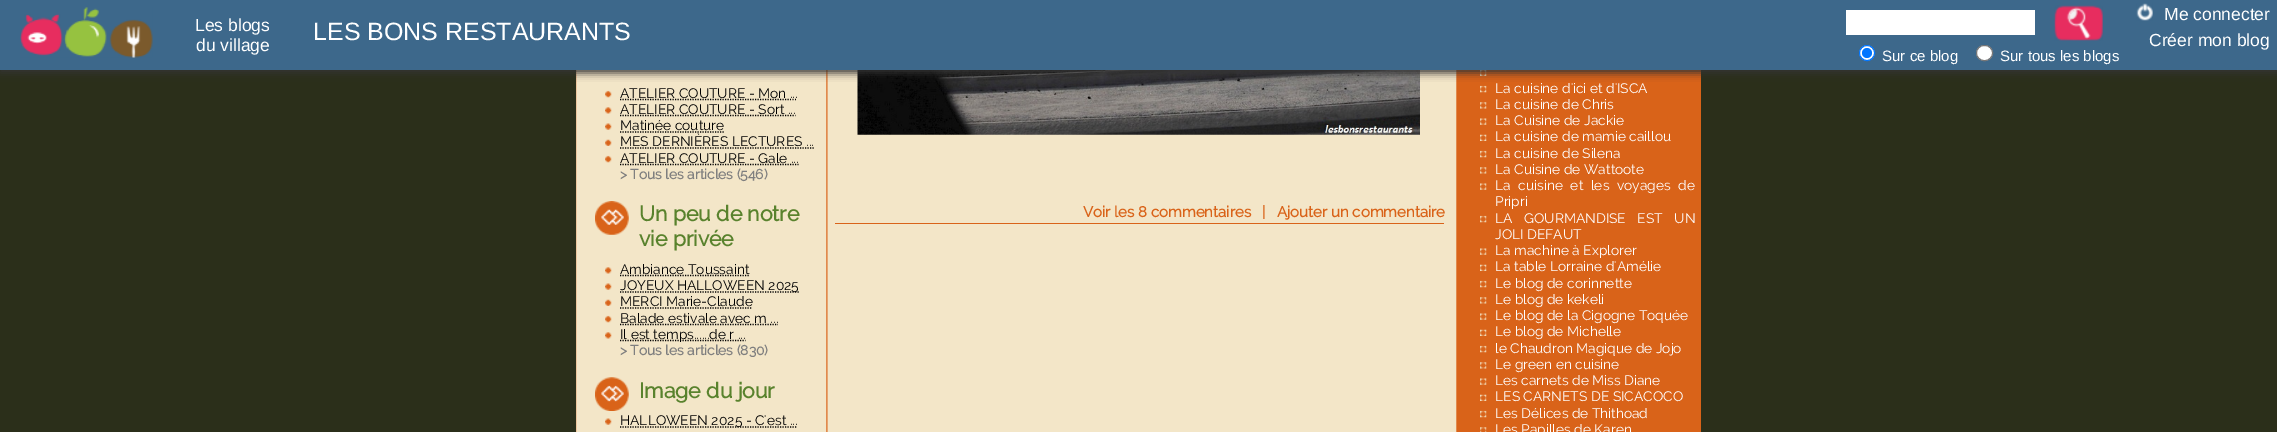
%!PS
<< /PageSize [2277 432] /PageUsesTransparency true >> setpagedevice
/mt/moveto load def
/li/lineto load def
/fl/fill load def
/st/stroke load def
/gs/gsave load def
/gr/grestore load def
/lw/setlinewidth load def
/co { dup -16 bitshift 255 div exch dup -8 bitshift 255 and 255 div exch 255 and 255 div setrgbcolor } def
/fn { [ exch dup neg 0 0 3 -1 roll 0 0 ] selectfont } def
/tx { co fn moveto show } def
/bx { co rectfill } def
/al { dup .setfillconstantalpha .setstrokeconstantalpha } def
/ci { newpath 0 360 arc closepath } def
/rr { 5 dict begin { /r /h /w /y /x } { exch def } forall
  x r add y moveto x w add y 2 copy h add r arct x w add y h add x 1 index r arct
  x y h add x y r arct x y 2 copy exch w add exch r arct closepath end } def
/sh { 12 dict begin { /a /b /q /h /w /y /x } { exch def } forall gsave /was 0 def
  9 -2 -9 { dup b mul 4 div /e exch def 1 sub .425 mul 2.718 exch exp 1 add a .99 .min exch div /now exch def
    1 1 now sub 1 was sub div sub al /was now def
    w h .min e 2 mul add 0 gt { x e sub y e sub w e 2 mul add h e 2 mul add
      q e add b .6 mul add w h .min 2 div e add .min 0 .max rr fill } if } for grestore end } def
/im { 5 dict begin { /h /w /y /x /name } { exch def } forall
  gsave x y translate w h scale
  w h 8 [w 0 0 h 0 0] name (r) file false 3 colorimage grestore end } def
0 .pushpdf14devicefilter
0 432 translate 1 -1 scale
4 setmiterlimit
0 0 2277 432 16#2B2F1A bx
576 70 1125 362 16#D96319 bx
(media/4.raw) 576 70 881 362 im
(media/11.raw) 857 70 563 65 im
(media/12.raw) 1480 70 7 6 im
(media/13.raw) 1480 85 7 8 im
16#333333 co
0 3 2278 70 0 4 1 sh
0 0 2277 70 16#3D688B bx
(media/1.raw) 20 7 133 51 im
(media/2.raw) 2136 3 17 18 im
1846 10 189 25 16#FFFFFF bx
(media/3.raw) 2054 5 49 36 im
1867 53 7.5 ci gs fl gr
16#0075FF co
st
1867 53 5 ci fl
16#FFFFFF co
1976.5 45.5 16 15 7.5 rr gs fl gr
16#767676 co
st
(media/5.raw) 605 90 7 8 im
16#000000 co
1.2 lw
[1.25 1.25] 0 setdash
620 99.5 mt 790 99.5 li st
[] 0 setdash
790 99.5 mt 791 99.5 li 792.5 99.5 mt 793.5 99.5 li 795 99.5 mt 796 99.5 li 797.5 99.5 mt 797.5 99.5 li st
(media/6.raw) 605 107 7 7 im
[1.25 1.25] 0 setdash
620 115.5 mt 795.5 115.5 li st
(media/7.raw) 605 123 7 7 im
620 132 mt 724 132 li st
(media/8.raw) 605 139 7 7 im
620 148 mt 814 148 li st
(media/5.raw) 605 155 7 8 im
620 164.5 mt 798.5 164.5 li st
(media/9.raw) 595 201 34 34 im
(media/6.raw) 605 267 7 7 im
620 275.5 mt 749 275.5 li st
(media/7.raw) 605 283 7 7 im
620 292 mt 799 292 li st
(media/8.raw) 605 299 7 7 im
620 308 mt 752.5 308 li st
(media/5.raw) 605 315 7 8 im
620 324.5 mt 778 324.5 li st
(media/6.raw) 605 332 7 7 im
620 340.5 mt 745.5 340.5 li st
(media/10.raw) 595 377 34 34 im
(media/7.raw) 605 418 7 7 im
620 427 mt 797.5 427 li st
835 223 609 1 16#D96319 bx
(media/14.raw) 1480 102 7 7 im
(media/15.raw) 1480 118 7 7 im
(media/16.raw) 1480 134 7 7 im
(media/13.raw) 1480 150 7 8 im
(media/14.raw) 1480 167 7 7 im
(media/15.raw) 1480 183 7 7 im
(media/13.raw) 1480 215 7 8 im
(media/15.raw) 1480 248 7 7 im
(media/16.raw) 1480 264 7 7 im
(media/13.raw) 1480 280 7 8 im
(media/14.raw) 1480 297 7 7 im
(media/15.raw) 1480 313 7 7 im
(media/16.raw) 1480 329 7 7 im
(media/13.raw) 1480 345 7 8 im
(media/14.raw) 1480 362 7 7 im
(media/15.raw) 1480 378 7 7 im
(media/16.raw) 1480 394 7 7 im
(media/13.raw) 1480 410 7 8 im
(media/17.raw) 1480 427 7 5 im
(Les blogs) 195 31 /LiberationSans-Regular 17.5 16#FFFFFF tx
(du village) 196 51 /LiberationSans-Regular 17.5 16#FFFFFF tx
(LES BONS RESTAURANTS) 313 40 /LiberationSans-Regular 25 16#FFFFFF tx
(Me connecter) 2164 20 /LiberationSans-Regular 17.5 16#FFFFFF tx
(Créer mon blog) 2149 46 /LiberationSans-Regular 17.5 16#FFFFFF tx
(Sur ce blog) 1882 61 /LiberationSans-Regular 15 16#FFFFFF tx
(Sur tous les blogs) 2000 61 /LiberationSans-Regular 15 16#FFFFFF tx
(ATELIER COUTURE - Mon ...) 620 98 /Raleway-Regular 13.75 16#000000 tx
(ATELIER COUTURE - Sort ...) 620 114 /Raleway-Regular 13.75 16#000000 tx
(Matinée couture) 620 130 /Raleway-Regular 13.75 16#000000 tx
(MES DERNIÈRES LECTURES ...) 620 146 /Raleway-Regular 13.75 16#000000 tx
(ATELIER COUTURE - Gale ...) 620 163 /Raleway-Regular 13.75 16#000000 tx
(> Tous les articles \(546\)) 620 179 /Raleway-Bold 13.75 16#7F7F7F tx
(Un peu de notre) 639 221 /Raleway-Bold 21.25 16#59822D tx
(vie privée) 639 246 /Raleway-Bold 21.25 16#59822D tx
(Ambiance Toussaint) 620 274 /Raleway-Regular 13.75 16#000000 tx
(JOYEUX HALLOWEEN 2025) 620 290 /Raleway-Regular 13.75 16#000000 tx
(MERCI Marie-Claude) 620 306 /Raleway-Regular 13.75 16#000000 tx
(Balade estivale avec m ...) 620 323 /Raleway-Regular 13.75 16#000000 tx
(Il est temps......de r ...) 620 339 /Raleway-Regular 13.75 16#000000 tx
(> Tous les articles \(830\)) 620 355 /Raleway-Bold 13.75 16#7F7F7F tx
(Image du jour) 639 398 /Raleway-Bold 21.25 16#59822D tx
(HALLOWEEN 2025 - C'est ...) 620 425 /Raleway-Regular 13.75 16#000000 tx
(Voir les 8 commentaires) 1083 217 /Raleway-Bold 15 16#D96319 tx
(|) 1262 217 /Raleway-Bold 15 16#D96319 tx
(Ajouter un commentaire) 1277 217 /Raleway-Bold 15 16#D96319 tx
(La cuisine d'ici et d'ISCA) 1495 93 /Raleway-Regular 13.75 16#FFFFFF tx
(La cuisine de Chris) 1495 109 /Raleway-Regular 13.75 16#FFFFFF tx
(La Cuisine de Jackie) 1495 125 /Raleway-Regular 13.75 16#FFFFFF tx
(La cuisine de mamie caillou) 1495 141 /Raleway-Regular 13.75 16#FFFFFF tx
(La cuisine de Silena) 1495 158 /Raleway-Regular 13.75 16#FFFFFF tx
(La Cuisine de Wattoote) 1495 174 /Raleway-Regular 13.75 16#FFFFFF tx
1495 190 mt 4.25 0 32 (La cuisine et les voyages de) widthshow
(Pripri) 1495 206 /Raleway-Regular 13.75 16#FFFFFF tx
1495 223 mt 8 0 32 (LA GOURMANDISE EST UN) widthshow
(JOLI DEFAUT) 1495 239 /Raleway-Regular 13.75 16#FFFFFF tx
(La machine à Explorer) 1495 255 /Raleway-Regular 13.75 16#FFFFFF tx
(La table Lorraine d'Amélie) 1495 271 /Raleway-Regular 13.75 16#FFFFFF tx
(Le blog de corinnette) 1495 288 /Raleway-Regular 13.75 16#FFFFFF tx
(Le blog de kekeli) 1495 304 /Raleway-Regular 13.75 16#FFFFFF tx
(Le blog de la Cigogne Toquée) 1495 320 /Raleway-Regular 13.75 16#FFFFFF tx
(Le blog de Michelle) 1495 336 /Raleway-Regular 13.75 16#FFFFFF tx
(le Chaudron Magique de Jojo) 1495 353 /Raleway-Regular 13.75 16#FFFFFF tx
(Le green en cuisine) 1495 369 /Raleway-Regular 13.75 16#FFFFFF tx
(Les carnets de Miss Diane) 1495 385 /Raleway-Regular 13.75 16#FFFFFF tx
(LES CARNETS DE SICACOCO) 1495 401 /Raleway-Regular 13.75 16#FFFFFF tx
(Les Délices de Thithoad) 1495 418 /Raleway-Regular 13.75 16#FFFFFF tx
(Les Papilles de Karen) 1495 434 /Raleway-Regular 13.75 16#FFFFFF tx
.poppdf14devicefilter showpage
